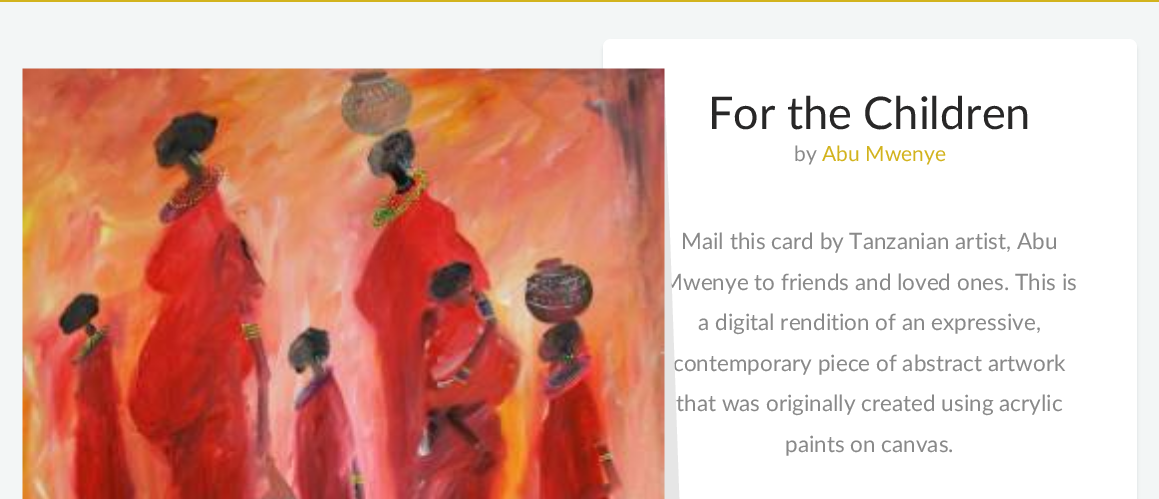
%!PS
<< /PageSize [1159 499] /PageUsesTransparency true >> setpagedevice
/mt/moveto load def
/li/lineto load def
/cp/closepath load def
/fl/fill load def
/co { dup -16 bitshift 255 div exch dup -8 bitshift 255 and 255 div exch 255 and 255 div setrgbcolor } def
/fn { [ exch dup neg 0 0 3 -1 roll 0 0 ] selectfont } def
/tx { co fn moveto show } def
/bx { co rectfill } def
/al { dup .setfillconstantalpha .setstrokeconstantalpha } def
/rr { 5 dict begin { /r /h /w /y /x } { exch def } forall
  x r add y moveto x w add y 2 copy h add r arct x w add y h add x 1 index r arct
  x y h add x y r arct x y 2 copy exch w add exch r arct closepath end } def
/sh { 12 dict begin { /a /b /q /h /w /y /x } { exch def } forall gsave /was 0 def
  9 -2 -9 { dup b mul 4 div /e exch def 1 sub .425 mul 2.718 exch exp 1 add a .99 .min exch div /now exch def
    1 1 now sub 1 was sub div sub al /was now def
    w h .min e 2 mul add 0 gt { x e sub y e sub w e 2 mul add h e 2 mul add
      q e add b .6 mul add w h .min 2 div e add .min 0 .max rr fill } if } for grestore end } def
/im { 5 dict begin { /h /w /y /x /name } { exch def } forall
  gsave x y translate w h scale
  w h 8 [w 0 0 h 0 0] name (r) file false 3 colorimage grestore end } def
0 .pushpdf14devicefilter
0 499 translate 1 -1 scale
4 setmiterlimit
0 0 1159 499 16#F3F6F6 bx
0 0 1159 2 16#D2B31D bx
16#0B191C co
603 42 534 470 8 1.5 .1 sh
16#FFFFFF co
603 39 534 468 8 rr fl
(For the Children) 708 129 /Lato-Regular 45 16#282727 tx
(by) 794 161 /Lato-Regular 21 16#898989 tx
(Abu Mwenye) 822 161 /Lato-Regular 21 16#D2B31D tx
(Mail this card by Tanzanian artist, Abu) 681 249 /Lato-Regular 22.5 16#898989 tx
(Mwenye to friends and loved ones. This is) 662 290 /Lato-Regular 22.5 16#898989 tx
(a digital rendition of an expressive,) 698 330 /Lato-Regular 22.5 16#898989 tx
(contemporary piece of abstract artwork) 673 371 /Lato-Regular 22.5 16#898989 tx
(that was originally created using acrylic) 676 411 /Lato-Regular 22.5 16#898989 tx
16#E6E6E6 co
343 69 mt 664 69 li 695 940 li 374 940 li cp fl
(media/1.raw) 22 68 643 431 im
(paints on canvas.) 785 452 /Lato-Regular 22.5 16#898989 tx
.poppdf14devicefilter showpage
